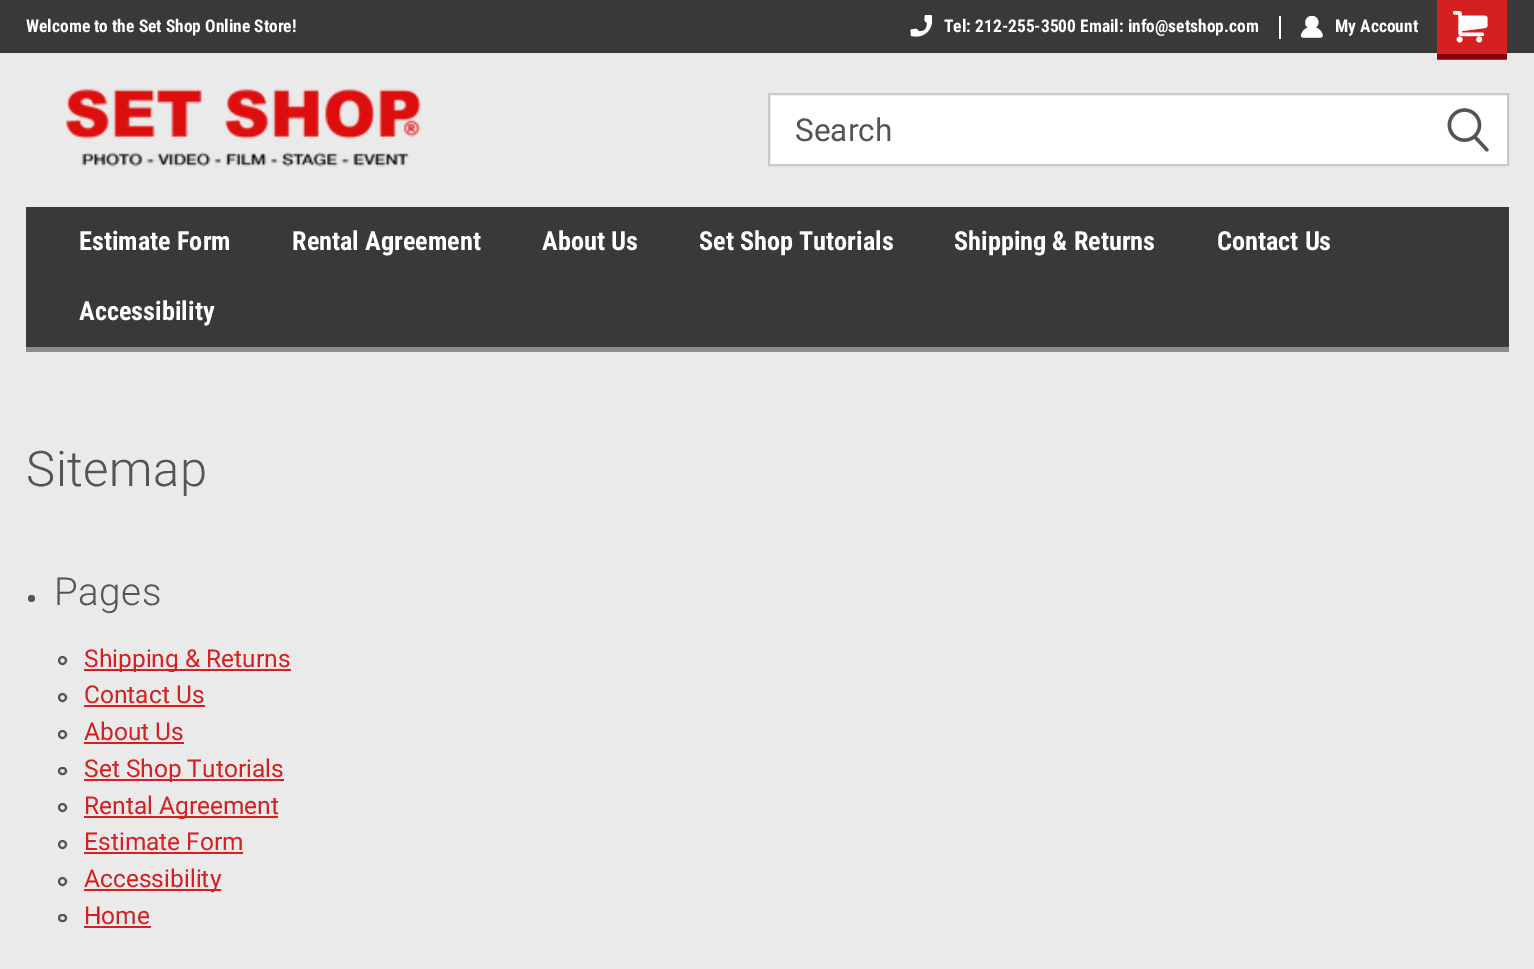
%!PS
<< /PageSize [1534 969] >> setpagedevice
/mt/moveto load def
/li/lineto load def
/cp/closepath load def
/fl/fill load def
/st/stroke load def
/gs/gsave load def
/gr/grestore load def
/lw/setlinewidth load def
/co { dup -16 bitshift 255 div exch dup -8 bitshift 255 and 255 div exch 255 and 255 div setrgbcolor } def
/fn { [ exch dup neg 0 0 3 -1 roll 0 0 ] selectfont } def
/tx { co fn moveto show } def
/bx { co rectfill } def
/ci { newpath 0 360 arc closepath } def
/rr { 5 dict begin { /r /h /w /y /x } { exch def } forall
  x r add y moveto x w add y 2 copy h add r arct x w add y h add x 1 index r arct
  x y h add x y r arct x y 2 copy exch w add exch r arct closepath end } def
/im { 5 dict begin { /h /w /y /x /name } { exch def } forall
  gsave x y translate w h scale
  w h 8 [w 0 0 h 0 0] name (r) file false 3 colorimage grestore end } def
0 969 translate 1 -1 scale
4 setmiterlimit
0 0 1534 969 16#EAEAEA bx
0 0 1534 53 16#393939 bx
1279 16 2 23 16#FFFFFF bx
(media/1.raw) 910 15 22 22 im
(media/2.raw) 1300 16 23 22 im
1437 0 70 60 16#D42020 bx
1437 54 70 5 16#860109 bx
(media/3.raw) 1453 10 35 33 im
(media/4.raw) 65 88 356 79 im
16#FFFFFF co
769 94 mt 1508 94 li 1508 165 li 769 165 li cp gs fl gr
16#CAC9C9 co
2 lw
st
(media/5.raw) 1447 108 42 44 im
26 207 1483 140 16#393939 bx
26 347 1483 5 16#8B8B8B bx
16#545454 co
31.5 598.5 3.5 ci fl
62.5 660.5 3.5 ci st
84 669 207 2 16#D42020 bx
16#545454 co
62.5 697.5 3.5 ci st
84 705 121 2 16#D42020 bx
16#545454 co
62.5 734.5 3.5 ci st
84 742 100 2 16#D42020 bx
16#545454 co
59 768 7 6 3 rr st
84 779 200 2 16#D42020 bx
16#545454 co
62.5 807.5 3.5 ci st
84 816 194 2 16#D42020 bx
16#545454 co
62.5 844.5 3.5 ci st
84 852 159 2 16#D42020 bx
16#545454 co
62.5 881.5 3.5 ci st
84 889 137 2 16#D42020 bx
16#545454 co
59 915 7 6 3 rr st
84 926 67 2 16#D42020 bx
(Welcome to the Set Shop Online Store!) 26 32 /RobotoCondensed-Bold 17.5 16#FFFFFF tx
(Tel: 212-255-3500 Email: info@setshop.com) 944 32 /RobotoCondensed-Bold 17.5 16#FFFFFF tx
(My Account) 1335 32 /RobotoCondensed-Bold 17.5 16#FFFFFF tx
(Search) 795 141 /Roboto-Regular 31.5 16#545454 tx
(Estimate Form) 79 250 /RobotoCondensed-Bold 26.25 16#FFFFFF tx
(Rental Agreement) 292 250 /RobotoCondensed-Bold 26.25 16#FFFFFF tx
(About Us) 542 250 /RobotoCondensed-Bold 26.25 16#FFFFFF tx
(Set Shop Tutorials) 699 250 /RobotoCondensed-Bold 26.25 16#FFFFFF tx
(Shipping & Returns) 954 250 /RobotoCondensed-Bold 26.25 16#FFFFFF tx
(Contact Us) 1217 250 /RobotoCondensed-Bold 26.25 16#FFFFFF tx
(Accessibility) 79 320 /RobotoCondensed-Bold 26.25 16#FFFFFF tx
/Roboto-Light 49 fn
16#545454 co
26 486 mt .5 0 (Sitemap) ashow
/Roboto-Light 38.5 fn
54 605 mt .5 0 (Pages) ashow
(Shipping & Returns) 84 667 /Roboto-Regular 24.5 16#D42020 tx
(Contact Us) 84 703 /Roboto-Regular 24.5 16#D42020 tx
(About Us) 84 740 /Roboto-Regular 24.5 16#D42020 tx
(Set Shop Tutorials) 84 777 /Roboto-Regular 24.5 16#D42020 tx
(Rental Agreement) 84 814 /Roboto-Regular 24.5 16#D42020 tx
(Estimate Form) 84 850 /Roboto-Regular 24.5 16#D42020 tx
(Accessibility) 84 887 /Roboto-Regular 24.5 16#D42020 tx
(Home) 84 924 /Roboto-Regular 24.5 16#D42020 tx
showpage
